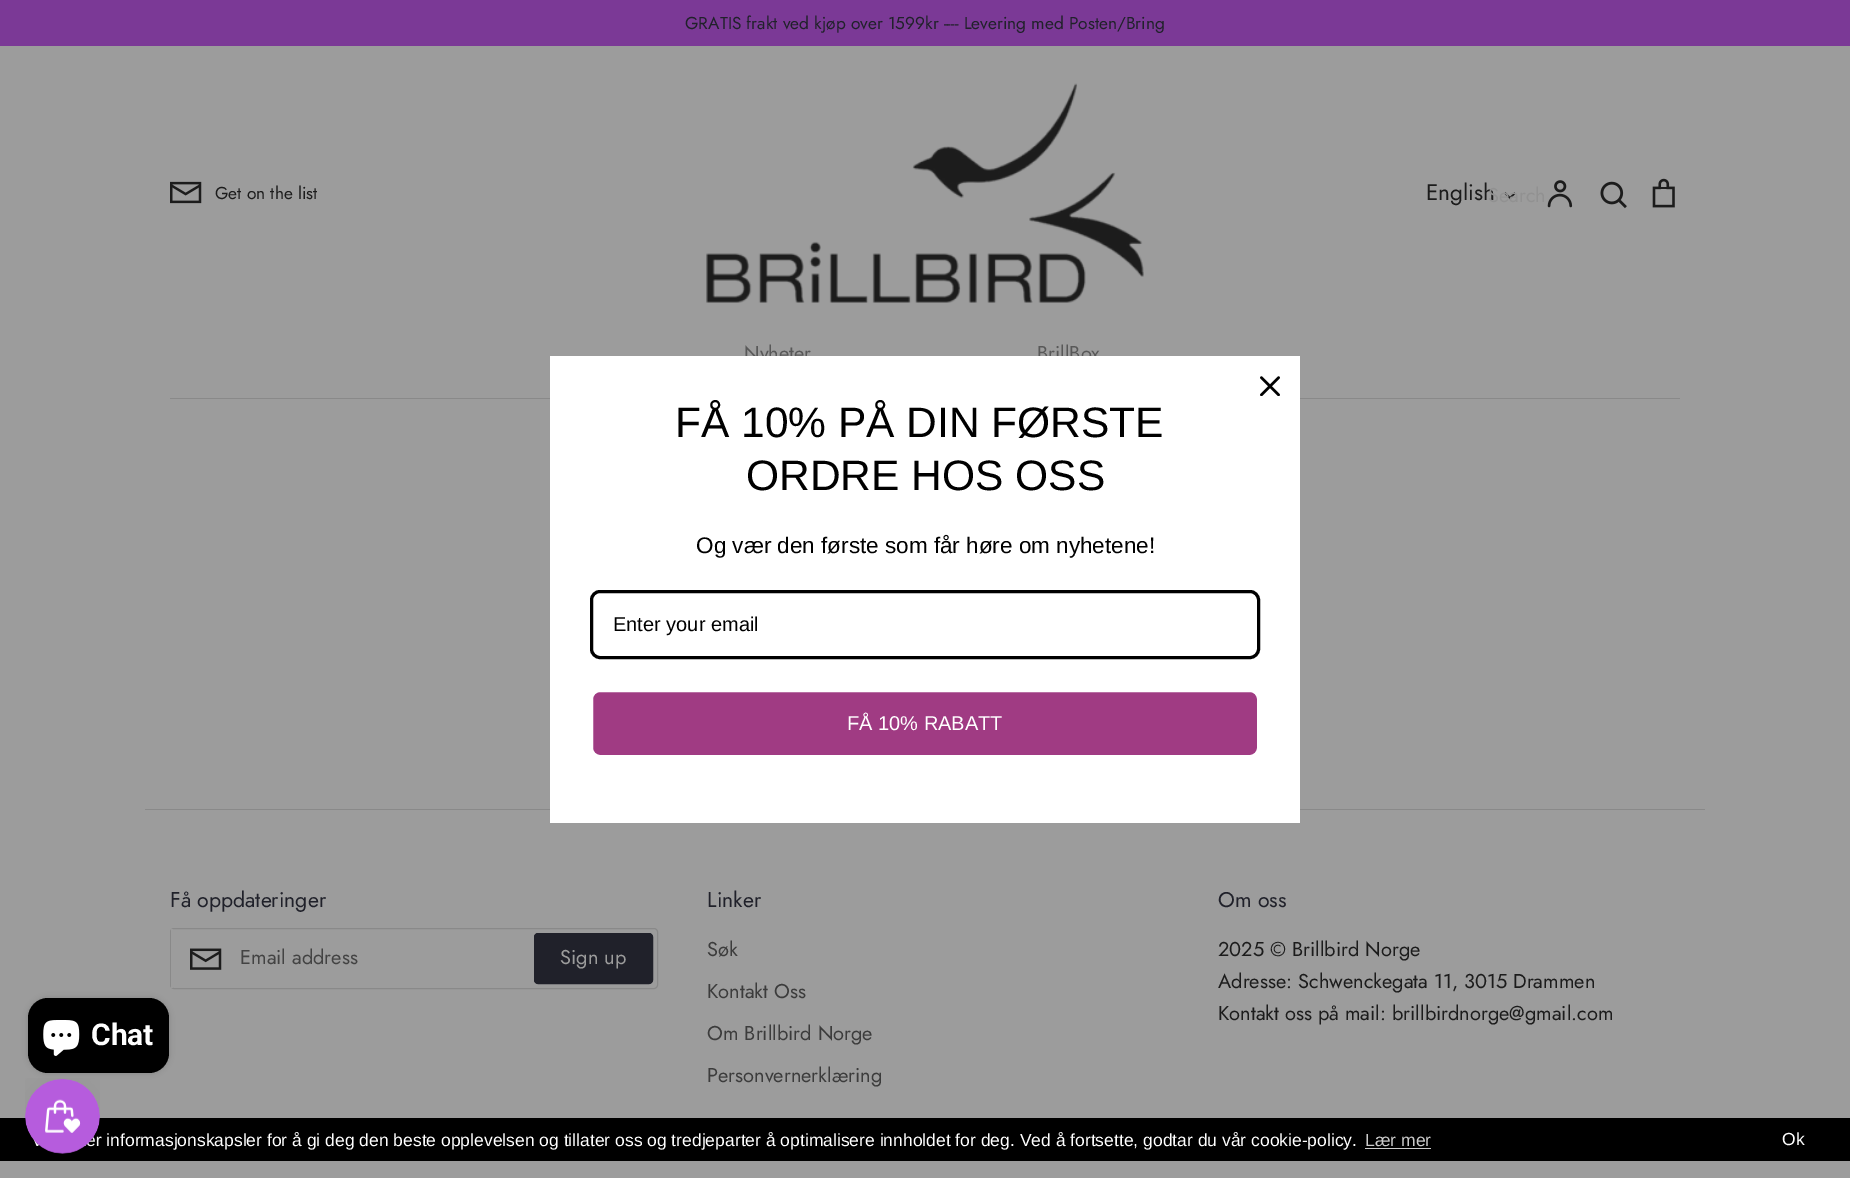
%!PS
<< /PageSize [1850 1178] /PageUsesTransparency true >> setpagedevice
/mt/moveto load def
/li/lineto load def
/fl/fill load def
/st/stroke load def
/gs/gsave load def
/gr/grestore load def
/lw/setlinewidth load def
/co { dup -16 bitshift 255 div exch dup -8 bitshift 255 and 255 div exch 255 and 255 div setrgbcolor } def
/fn { [ exch dup neg 0 0 3 -1 roll 0 0 ] selectfont } def
/tx { co fn moveto show } def
/bx { co rectfill } def
/al { dup .setfillconstantalpha .setstrokeconstantalpha } def
/rr { 5 dict begin { /r /h /w /y /x } { exch def } forall
  x r add y moveto x w add y 2 copy h add r arct x w add y h add x 1 index r arct
  x y h add x y r arct x y 2 copy exch w add exch r arct closepath end } def
/sh { 12 dict begin { /a /b /q /h /w /y /x } { exch def } forall gsave /was 0 def
  9 -2 -9 { dup b mul 4 div /e exch def 1 sub .425 mul 2.718 exch exp 1 add a .99 .min exch div /now exch def
    1 1 now sub 1 was sub div sub al /was now def
    w h .min e 2 mul add 0 gt { x e sub y e sub w e 2 mul add h e 2 mul add
      q e add b .6 mul add w h .min 2 div e add .min 0 .max rr fill } if } for grestore end } def
/im { 5 dict begin { /h /w /y /x /name } { exch def } forall
  gsave x y translate w h scale
  w h 8 [w 0 0 h 0 0] name (r) file false 3 colorimage grestore end } def
0 .pushpdf14devicefilter
0 1178 translate 1 -1 scale
4 setmiterlimit
0 0 1850 1178 16#9C9C9C bx
0 0 1850 46 16#7B3996 bx
(media/1.raw) 170 181 32 23 im
(media/2.raw) 706 83 438 220 im
16#1C1C1C co
1.7 lw
1505 193 mt 1510 198 li 1515 193 li st
(media/3.raw) 1600 181 27 28 im
(media/4.raw) 1547 180 26 28 im
(media/5.raw) 1652 178 23 30 im
170 398 1510 1 16#898989 bx
1 lw
170.5 928.5 487 60 3.5 rr st
16#000000 co
28 998 141 75 20 3 .15 sh
28 998 141 75 20 rr fl
(media/7.raw) 43 1020 37 36 im
145 809 1560 1 16#898989 bx
(media/8.raw) 190 948 32 22 im
171 929 2 59 16#9C9C9C bx
16#20212A co
534.5 933.5 118 50 3.5 rr gs fl gr
st
0 1118 1850 43 16#000000 bx
1365 1148 66 1 16#CCCCCC bx
(GRATIS frakt ved kjøp over 1599kr ---- Levering med Posten/Bring) 685 29 /Jost-Regular 17.3 16#20212A tx
(Get on the list) 215 199 /Jost-Regular 17.3 16#1C1C1C tx
(English) 1426 200 /Jost-Regular 22.5 16#1C1C1C tx
(Search) 1488 202 /Jost-Regular 20 16#919191 tx
(Nyheter) 744 360 /Jost-Regular 20 16#585858 tx
(BrillBox) 1037 360 /Jost-Regular 20 16#585858 tx
550 356 750 467 16#FFFFFF bx
(media/6.raw) 1260 376 20 20 im
(FÅ 10% PÅ DIN FØRSTE) 675 437 /LiberationSans-Regular 42.5 16#000000 tx
(ORDRE HOS OSS) 746 490 /LiberationSans-Regular 42.5 16#000000 tx
(Og vær den første som får høre om nyhetene!) 696 553 /LiberationSans-Regular 22.5 16#000000 tx
3 lw
591.5 591.5 667 66 8.5 rr st
(Enter your email) 613 631 /LiberationSans-Regular 20 16#000000 tx
16#A03B83 co
591.5 690.5 667 66 8.5 rr gs fl gr
16#FFFFFF co
st
(FÅ 10% RABATT) 847 730 /LiberationSans-Regular 20 16#FFFFFF tx
(Chat) 91 1045 /Roboto-Bold 30 16#FFFFFF tx
(Få oppdateringer) 170 907 /Jost-Regular 21.25 16#20212A tx
(Email address) 240 964 /Jost-Regular 20 16#434343 tx
(Sign up) 560 964 /Jost-Regular 20 16#9C9C9C tx
(Linker) 707 907 /Jost-Regular 21.25 16#20212A tx
(Søk) 707 956 /Jost-Regular 20 16#3C3C3C tx
(Kontakt Oss) 707 998 /Jost-Regular 20 16#3C3C3C tx
(Om Brillbird Norge) 707 1040 /Jost-Regular 20 16#3C3C3C tx
(Personvernerklæring) 707 1082 /Jost-Regular 20 16#3C3C3C tx
(Om oss) 1218 907 /Jost-Regular 21.25 16#20212A tx
(2025 © Brillbird Norge) 1218 956 /Jost-Regular 20 16#1C1C1C tx
(Adresse: Schwenckegata 11, 3015 Drammen) 1218 988 /Jost-Regular 20 16#1C1C1C tx
(Kontakt oss på mail: brillbirdnorge@gmail.com) 1218 1020 /Jost-Regular 20 16#1C1C1C tx
(er informasjonskapsler for å gi deg den beste opplevelsen og tillater oss og tredjeparter å optimalisere innholdet for deg. Ved å fortsette, godtar du vår cookie-policy.) 86 1146 /LiberationSans-Regular 17.5 16#FFFFFF tx
(media/9.raw) 25 1078 75 76 im
(Lær mer) 1365 1146 /LiberationSans-Regular 17.5 16#CCCCCC tx
(Ok) 1782 1145 /LiberationSans-Regular 17.5 16#FFFFFF tx
.poppdf14devicefilter showpage
